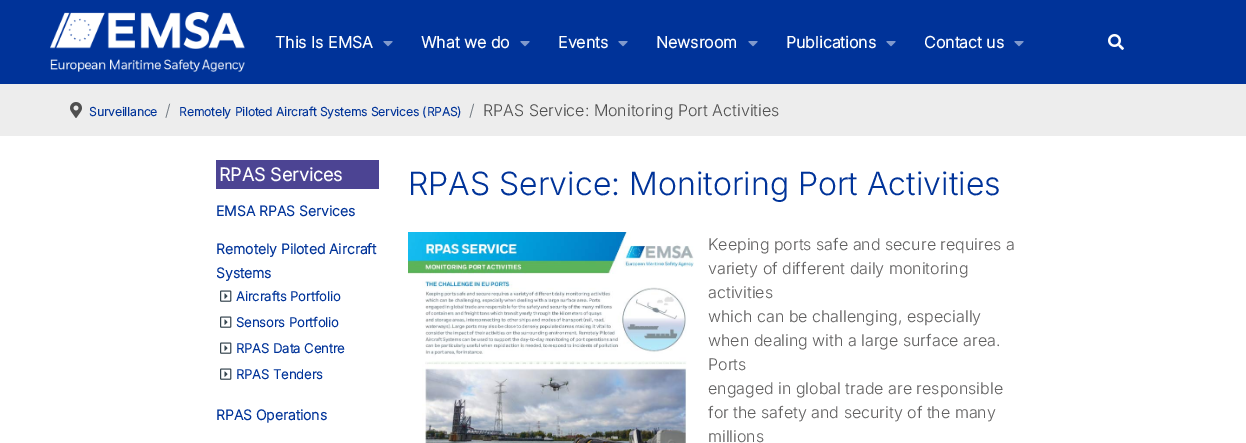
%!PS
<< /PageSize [1246 443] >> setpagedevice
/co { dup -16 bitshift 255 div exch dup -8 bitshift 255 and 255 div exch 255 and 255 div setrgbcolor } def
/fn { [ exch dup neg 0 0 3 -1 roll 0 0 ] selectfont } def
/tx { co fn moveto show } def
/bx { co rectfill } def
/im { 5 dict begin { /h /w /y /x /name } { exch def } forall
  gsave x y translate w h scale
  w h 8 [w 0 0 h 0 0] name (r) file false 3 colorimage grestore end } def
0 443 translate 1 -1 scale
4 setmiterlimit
0 0 1246 443 16#FFFFFF bx
0 0 1246 84 16#003399 bx
(media/1.raw) 50 12 195 60 im
(media/2.raw) 383 41 10 6 im
(media/2.raw) 520 41 10 6 im
(media/2.raw) 618 41 10 6 im
(media/2.raw) 748 41 10 6 im
(media/2.raw) 886 41 10 6 im
(media/2.raw) 1014 41 10 6 im
(media/3.raw) 1108 34 16 16 im
0 84 1246 52 16#EDEDED bx
(media/4.raw) 70 102 12 16 im
216 160 163 29 16#4C4493 bx
(media/5.raw) 220 290 12 12 im
(media/5.raw) 220 316 12 12 im
(media/5.raw) 220 342 12 12 im
(media/5.raw) 220 368 12 12 im
(media/6.raw) 408 232 286 211 im
(This Is EMSA) 275 48 /Inter-Bold 16 16#FFFFFF tx
(What we do) 421 48 /Inter-Bold 16 16#FFFFFF tx
(Events) 558 48 /Inter-Bold 16 16#FFFFFF tx
(Newsroom) 656 48 /Inter-Bold 16 16#FFFFFF tx
(Publications) 786 48 /Inter-Bold 16 16#FFFFFF tx
(Contact us) 924 48 /Inter-Bold 16 16#FFFFFF tx
(Surveillance) 89 116 /Inter-Bold 12 16#003399 tx
(/) 165 116 /Inter-Light 16 16#6C757D tx
(Remotely Piloted Aircraft Systems Services \(RPAS\)) 179 116 /Inter-Bold 12 16#003399 tx
(/) 469 116 /Inter-Light 16 16#6C757D tx
(RPAS Service: Monitoring Port Activities) 483 116 /Inter-Light 16 16#4F4F4F tx
(RPAS Services) 219 181 /Inter-Bold 18 16#FFFFFF tx
(EMSA RPAS Services) 216 216 /Inter-Bold 14 16#003399 tx
(Remotely Piloted Aircraft) 216 254 /Inter-Bold 14 16#003399 tx
(Systems) 216 278 /Inter-Bold 14 16#003399 tx
(Aircrafts Portfolio) 236 301 /Inter-Bold 13 16#003399 tx
(Sensors Portfolio) 236 327 /Inter-Bold 13 16#003399 tx
(RPAS Data Centre) 236 353 /Inter-Bold 13 16#003399 tx
(RPAS Tenders) 236 379 /Inter-Bold 13 16#003399 tx
(RPAS Operations) 216 420 /Inter-Bold 14 16#003399 tx
(RPAS Service: Monitoring Port Activities) 408 195 /Inter-Light 32 16#003399 tx
(Keeping ports safe and secure requires a) 708 250 /Inter-Light 16 16#616060 tx
(variety of different daily monitoring) 708 274 /Inter-Light 16 16#616060 tx
(activities) 708 298 /Inter-Light 16 16#616060 tx
(which can be challenging, especially) 708 322 /Inter-Light 16 16#616060 tx
(when dealing with a large surface area.) 708 346 /Inter-Light 16 16#616060 tx
(Ports) 708 370 /Inter-Light 16 16#616060 tx
(engaged in global trade are responsible) 708 394 /Inter-Light 16 16#616060 tx
(for the safety and security of the many) 708 418 /Inter-Light 16 16#616060 tx
(millions) 708 442 /Inter-Light 16 16#616060 tx
showpage
